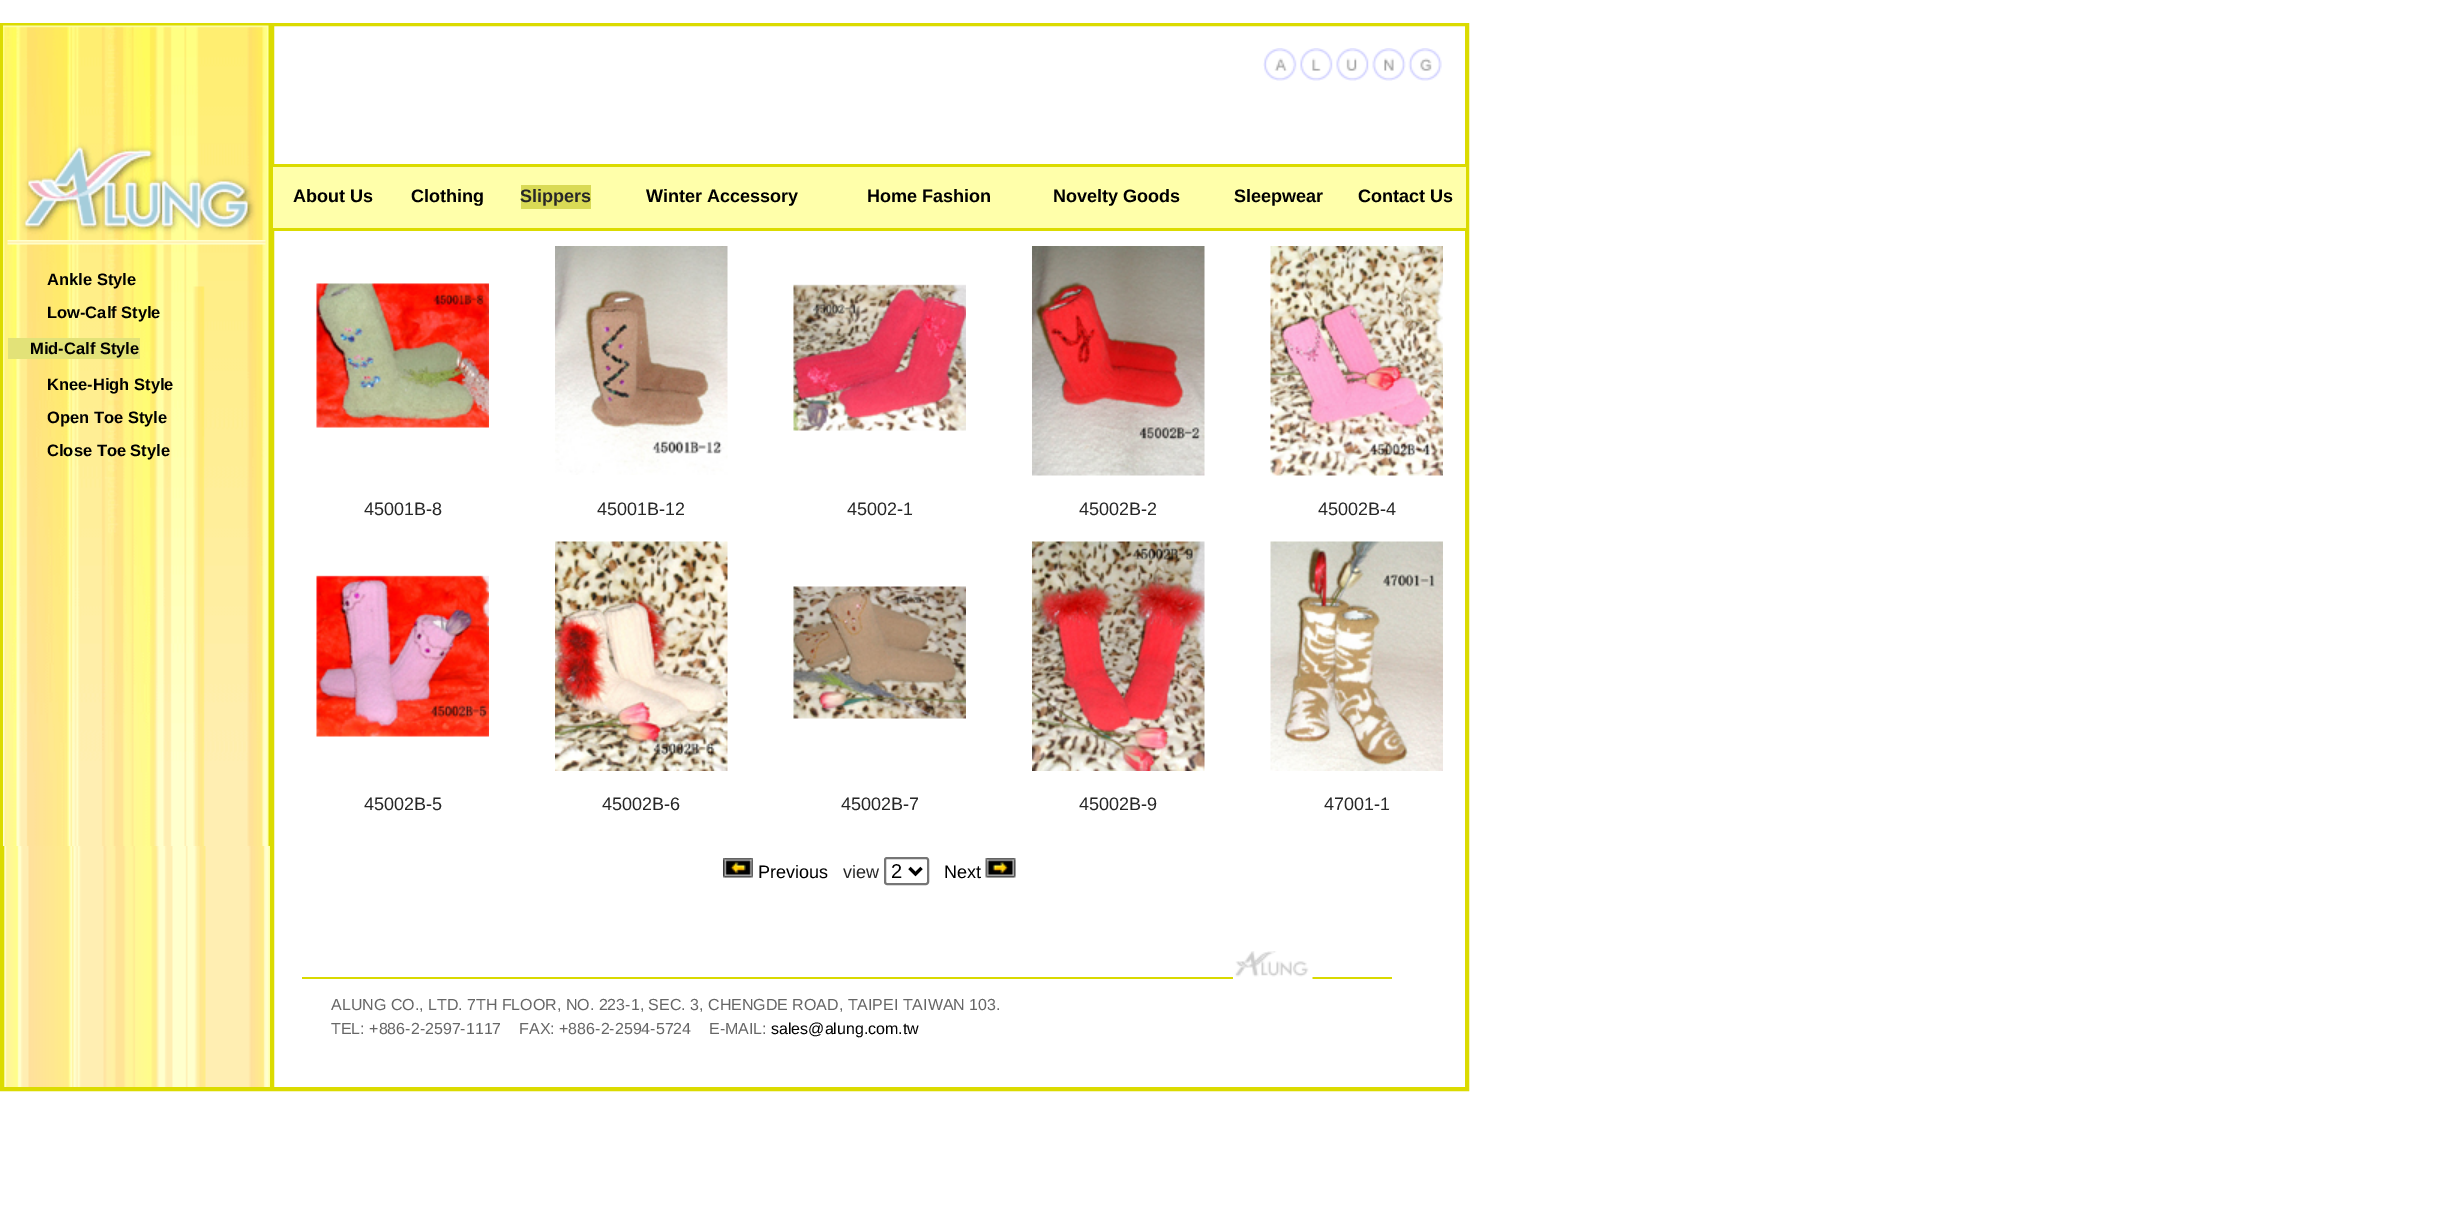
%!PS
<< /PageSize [2444 1229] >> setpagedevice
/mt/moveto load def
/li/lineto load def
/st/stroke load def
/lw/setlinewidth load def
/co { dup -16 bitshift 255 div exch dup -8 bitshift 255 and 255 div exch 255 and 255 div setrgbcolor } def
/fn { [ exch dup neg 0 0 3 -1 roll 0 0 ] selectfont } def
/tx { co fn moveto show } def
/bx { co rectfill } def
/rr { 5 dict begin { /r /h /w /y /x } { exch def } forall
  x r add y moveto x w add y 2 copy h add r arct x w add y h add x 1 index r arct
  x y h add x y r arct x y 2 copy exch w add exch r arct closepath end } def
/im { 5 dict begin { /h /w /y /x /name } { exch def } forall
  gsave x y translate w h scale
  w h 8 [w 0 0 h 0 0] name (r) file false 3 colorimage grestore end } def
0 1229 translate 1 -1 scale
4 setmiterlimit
0 0 2444 1229 16#FFFFFF bx
16#DBDB00 co
2 lw
1 24 1467 1066 rectstroke
4 846 266 241 16#FFFFAA bx
(media/1.raw) 4 846 265 241 im
16#DBDB00 co
3 25 268 1063 rectstroke
(media/2.raw) 3 25 267 821 im
(media/3.raw) 7 240 259 5 im
8 338 132 21 16#E2E278 bx
16#DBDB00 co
273 25 1193 1063 rectstroke
(media/4.raw) 1263 48 179 33 im
273 167 1193 61 16#FFFFAA bx
273 164 1193 3 16#DBDB00 bx
273 228 1193 3 16#DBDB00 bx
521 185 70 24 16#D9DA55 bx
(media/5.raw) 316 283 173 145 im
(media/6.raw) 555 246 173 229 im
(media/7.raw) 793 284 173 147 im
(media/8.raw) 1032 246 173 230 im
(media/9.raw) 1270 246 173 230 im
(media/10.raw) 316 575 173 162 im
(media/11.raw) 555 541 173 230 im
(media/12.raw) 793 586 173 133 im
(media/13.raw) 1032 541 173 230 im
(media/14.raw) 1270 541 173 230 im
(media/15.raw) 723 858 30 20 im
16#767676 co
885 858 43 26 2 rr st
16#000000 co
3 lw
909.5 868 mt 915.5 874 li 921.5 868 li st
(media/16.raw) 985 858 31 20 im
302 977 1090 2 16#D9D900 bx
(media/17.raw) 1233 951 80 28 im
(Ankle Style) 47 285 /LiberationSans-Bold 16.5 16#000000 tx
(Low-Calf Style) 47 318 /LiberationSans-Bold 16.5 16#000000 tx
(Mid-Calf Style) 30 354 /LiberationSans-Bold 16.5 16#000000 tx
(Knee-High Style) 47 390 /LiberationSans-Bold 16.5 16#000000 tx
(Open Toe Style) 47 423 /LiberationSans-Bold 16.5 16#000000 tx
(Close Toe Style) 47 456 /LiberationSans-Bold 16.5 16#000000 tx
(About Us) 293 202 /LiberationSans-Bold 18 16#000000 tx
(Clothing) 411 202 /LiberationSans-Bold 18 16#000000 tx
(Slippers) 520 202 /LiberationSans-Bold 18 16#272727 tx
(Winter Accessory) 646 202 /LiberationSans-Bold 18 16#000000 tx
(Home Fashion) 867 202 /LiberationSans-Bold 18 16#000000 tx
(Novelty Goods) 1053 202 /LiberationSans-Bold 18 16#000000 tx
(Sleepwear) 1234 202 /LiberationSans-Bold 18 16#000000 tx
(Contact Us) 1358 202 /LiberationSans-Bold 18 16#000000 tx
(45001B-8) 364 515 /LiberationSans-Regular 18 16#272727 tx
(45001B-12) 597 515 /LiberationSans-Regular 18 16#272727 tx
(45002-1) 847 515 /LiberationSans-Regular 18 16#272727 tx
(45002B-2) 1079 515 /LiberationSans-Regular 18 16#272727 tx
(45002B-4) 1318 515 /LiberationSans-Regular 18 16#272727 tx
(45002B-5) 364 810 /LiberationSans-Regular 18 16#272727 tx
(45002B-6) 602 810 /LiberationSans-Regular 18 16#272727 tx
(45002B-7) 841 810 /LiberationSans-Regular 18 16#272727 tx
(45002B-9) 1079 810 /LiberationSans-Regular 18 16#272727 tx
(47001-1) 1324 810 /LiberationSans-Regular 18 16#272727 tx
(Previous) 758 878 /LiberationSans-Regular 18 16#000000 tx
(view) 843 878 /LiberationSans-Regular 18 16#272727 tx
(2) 891 878 /LiberationSans-Regular 20 16#000000 tx
(Next) 944 878 /LiberationSans-Regular 18 16#000000 tx
(ALUNG CO., LTD. 7TH FLOOR, NO. 223-1, SEC. 3, CHENGDE ROAD, TAIPEI TAIWAN 103.) 331 1010 /LiberationSans-Regular 16 16#666666 tx
(TEL: +886-2-2597-1117    FAX: +886-2-2594-5724    E-MAIL:) 331 1034 /LiberationSans-Regular 16 16#666666 tx
(sales@alung.com.tw) 771 1034 /LiberationSans-Regular 16 16#000000 tx
showpage
